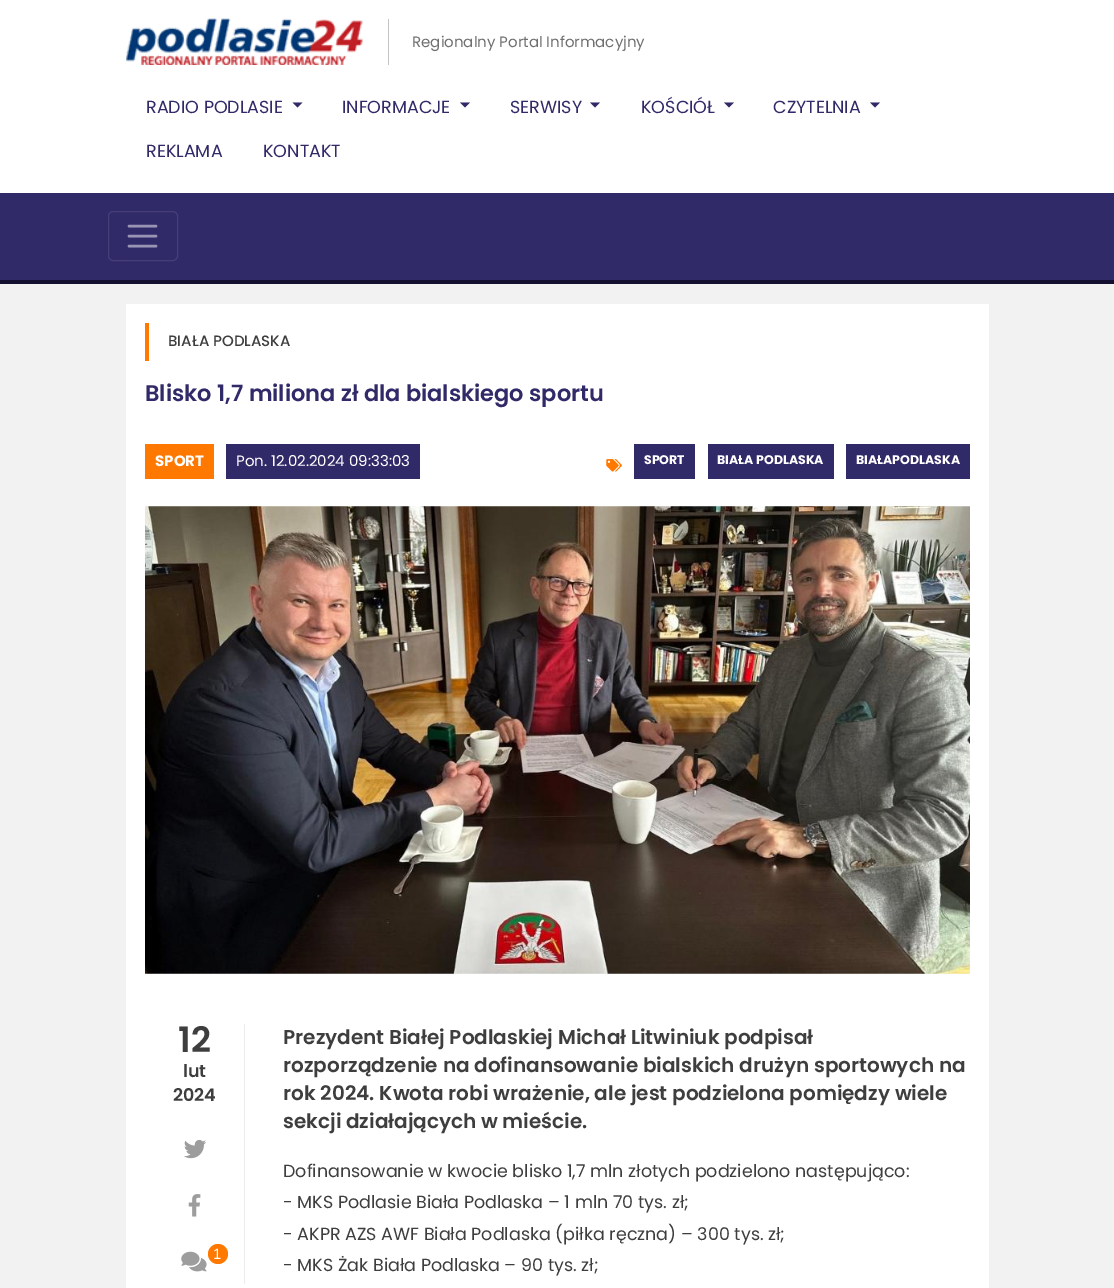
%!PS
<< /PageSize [1114 1288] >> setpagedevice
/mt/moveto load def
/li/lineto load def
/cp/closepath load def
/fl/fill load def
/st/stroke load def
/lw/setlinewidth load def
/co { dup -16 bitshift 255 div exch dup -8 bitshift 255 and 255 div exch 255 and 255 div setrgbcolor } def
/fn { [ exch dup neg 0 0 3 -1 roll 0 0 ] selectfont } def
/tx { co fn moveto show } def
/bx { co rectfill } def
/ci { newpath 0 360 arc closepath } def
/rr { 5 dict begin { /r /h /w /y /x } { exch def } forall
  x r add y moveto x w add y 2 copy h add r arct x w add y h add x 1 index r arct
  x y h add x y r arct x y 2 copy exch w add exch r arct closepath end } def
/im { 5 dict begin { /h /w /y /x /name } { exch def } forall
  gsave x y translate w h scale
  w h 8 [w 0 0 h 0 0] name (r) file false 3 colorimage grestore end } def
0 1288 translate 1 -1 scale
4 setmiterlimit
0 0 1114 1288 16#F2F2F2 bx
0 0 1114 193 16#FFFFFF bx
388 19 1 46 16#C3C3C3 bx
(media/1.raw) 126 18 237 47 im
16#312A68 co
292.5 102.5 mt 302.5 102.5 li 297.5 107.5 li cp fl
460 102.5 mt 470 102.5 li 465 107.5 li cp fl
590 102.5 mt 600 102.5 li 595 107.5 li cp fl
724 102.5 mt 734 102.5 li 729 107.5 li cp fl
870 102.5 mt 880 102.5 li 875 107.5 li cp fl
0 193 1114 87 16#312A68 bx
0 280 1114 4 16#141030 bx
16#463F77 co
108.5 211.5 69 49 4.5 rr st
16#9895B4 co
2.5 lw
1 setlinecap
129 226 mt 156 226 li 129 236 mt 156 236 li 129 246 mt 156 246 li st
126 304 863 984 16#FFFFFF bx
145 323 4 38 16#FF7800 bx
145 444 69 35 16#FF7800 bx
226 444 194 35 16#312A68 bx
(media/2.raw) 606 459 16 13 im
634 444 61 35 16#312A68 bx
708 444 126 35 16#312A68 bx
846 444 124 35 16#312A68 bx
(media/3.raw) 145 506 825 468 im
244 1024 1 260 16#ECECEC bx
(media/4.raw) 184 1139 22 20 im
(media/5.raw) 188 1194 13 23 im
(media/6.raw) 181 1251 26 21 im
16#FF7800 co
218 1254 10 ci fl
(Regionalny Portal Informacyjny) 412 47 /Poppins-Regular 15 16#707070 tx
(RADIO PODLASIE) 146 113 /Poppins-Regular 17.5 16#312A68 tx
(INFORMACJE) 342 113 /Poppins-Regular 17.5 16#312A68 tx
(SERWISY) 510 113 /Poppins-Regular 17.5 16#312A68 tx
(KOŚCIÓŁ) 641 113 /Poppins-Regular 17.5 16#312A68 tx
(CZYTELNIA) 773 113 /Poppins-Regular 17.5 16#312A68 tx
(REKLAMA) 146 157 /Poppins-Regular 17.5 16#312A68 tx
(KONTAKT) 263 157 /Poppins-Regular 17.5 16#312A68 tx
(BIAŁA PODLASKA) 168 346 /Poppins-Medium 15 16#3E3E3E tx
(Blisko 1,7 miliona zł dla bialskiego sportu) 145 401 /Poppins-SemiBold 22.5 16#312A68 tx
(SPORT) 155 466 /Poppins-Bold 15 16#FFFFFF tx
(Pon. 12.02.2024 09:33:03) 236 466 /Poppins-Regular 15 16#FFFFFF tx
(SPORT) 644 464 /Poppins-Bold 12.5 16#FFFFFF tx
(BIAŁA PODLASKA) 717 464 /Poppins-Bold 12.5 16#FFFFFF tx
(BIAŁAPODLASKA) 856 464 /Poppins-Bold 12.5 16#FFFFFF tx
(12) 178 1052 /Poppins-SemiBold 35 16#3E3E3E tx
(lut) 183 1077 /Poppins-SemiBold 17.5 16#3E3E3E tx
(2024) 173 1101 /Poppins-SemiBold 17.5 16#3E3E3E tx
(1) 213 1259 /LiberationSans-Regular 15 16#FFFFFF tx
(Prezydent Białej Podlaskiej Michał Litwiniuk podpisał) 283 1044 /Poppins-SemiBold 20 16#3E3E3E tx
(rozporządzenie na dofinansowanie bialskich drużyn sportowych na) 283 1072 /Poppins-SemiBold 20 16#3E3E3E tx
(rok 2024. Kwota robi wrażenie, ale jest podzielona pomiędzy wiele) 283 1100 /Poppins-SemiBold 20 16#3E3E3E tx
(sekcji działających w mieście.) 283 1128 /Poppins-SemiBold 20 16#3E3E3E tx
(Dofinansowanie w kwocie blisko 1,7 mln złotych podzielono następująco:) 283 1177 /Poppins-Regular 17.5 16#3E3E3E tx
(- MKS Podlasie Biała Podlaska – 1 mln 70 tys. zł;) 283 1208 /Poppins-Regular 17.5 16#3E3E3E tx
(- AKPR AZS AWF Biała Podlaska \(piłka ręczna\) – 300 tys. zł;) 283 1240 /Poppins-Regular 17.5 16#3E3E3E tx
(- MKS Żak Biała Podlaska – 90 tys. zł;) 283 1271 /Poppins-Regular 17.5 16#3E3E3E tx
showpage
